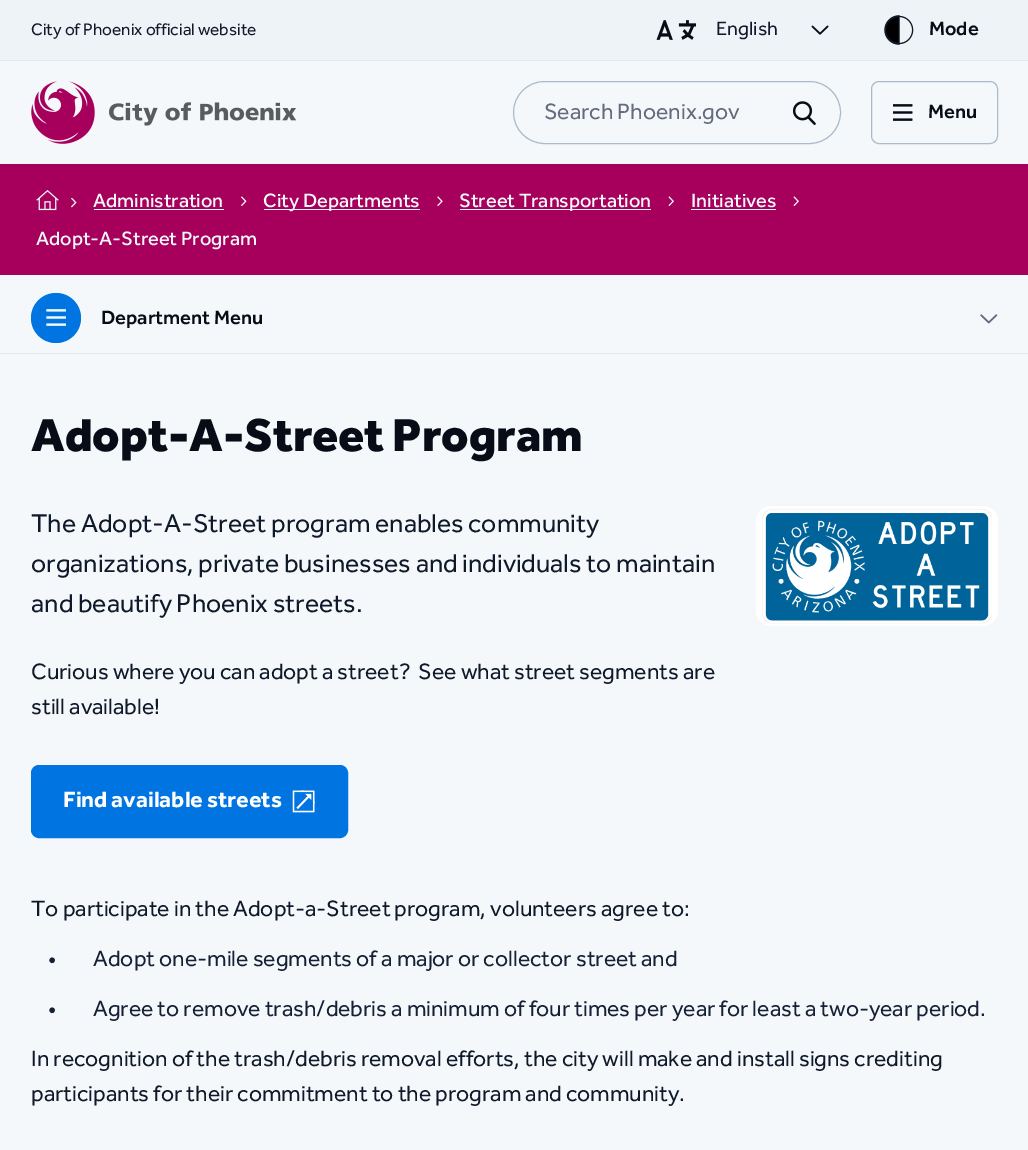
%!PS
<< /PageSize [1028 1150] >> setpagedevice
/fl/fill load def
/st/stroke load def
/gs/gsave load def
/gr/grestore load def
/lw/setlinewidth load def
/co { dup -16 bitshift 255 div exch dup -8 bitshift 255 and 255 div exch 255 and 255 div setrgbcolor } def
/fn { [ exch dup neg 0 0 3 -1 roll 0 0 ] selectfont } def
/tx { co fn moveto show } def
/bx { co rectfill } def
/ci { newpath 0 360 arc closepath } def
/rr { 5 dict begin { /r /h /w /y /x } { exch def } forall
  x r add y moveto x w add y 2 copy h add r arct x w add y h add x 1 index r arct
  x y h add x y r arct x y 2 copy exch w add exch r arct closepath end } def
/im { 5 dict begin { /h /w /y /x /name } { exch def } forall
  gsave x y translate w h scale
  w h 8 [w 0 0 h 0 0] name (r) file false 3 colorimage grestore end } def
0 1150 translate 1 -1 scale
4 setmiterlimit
0 0 1028 1150 16#F4F8FB bx
0 0 1028 60 16#EEF3F7 bx
0 60 1028 1 16#E7E8EF bx
(media/1.raw) 811 25 18 10 im
(media/2.raw) 656 20 40 20 im
(media/3.raw) 884 15 30 30 im
(media/4.raw) 31 81 265 63 im
16#ACBBCA co
513.5 81.5 327 62 31 rr st
(media/5.raw) 793 101 23 24 im
871.5 81.5 126 62 7.5 rr st
(media/6.raw) 893 104 20 17 im
0 164 1028 111 16#A7005C bx
(media/7.raw) 36 190 23 21 im
(media/8.raw) 71 198 6 10 im
94 209 130 1 16#F4F8FB bx
(media/9.raw) 241 196 6 10 im
264 209 156 1 16#F4F8FB bx
(media/10.raw) 437 196 6 10 im
460 209 191 1 16#F4F8FB bx
(media/11.raw) 668 196 6 10 im
691 209 85 1 16#F4F8FB bx
(media/11.raw) 793 196 6 10 im
0 353 1028 1 16#E7E8EF bx
16#0074E0 co
56 318 25 ci fl
(media/12.raw) 46 309 20 17 im
(media/13.raw) 980 314 18 10 im
16#FFFFFF co
756 506 242 120 15 rr fl
(media/14.raw) 762 509 230 115 im
16#0074E0 co
32.5 766.5 314 70 6.5 rr gs fl gr
3 lw
st
(media/15.raw) 292 790 23 23 im
(City of Phoenix official website) 31 35 /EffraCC-Regular 17.25 16#10192A tx
(English) 716 35 /EffraCC-Regular 20 16#10192A tx
(Mode) 929 35 /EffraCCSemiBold-SemiBold 20 16#070C16 tx
(Search Phoenix.gov) 544 119 /EffraCC-Regular 23 16#67697E tx
(Menu) 928 118 /EffraCCSemiBold-SemiBold 20 16#070C16 tx
(Administration) 93 207 /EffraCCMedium-Medium 20 16#F4F8FB tx
(City Departments) 263 207 /EffraCCMedium-Medium 20 16#F4F8FB tx
(Street Transportation) 459 207 /EffraCCMedium-Medium 20 16#F4F8FB tx
(Initiatives) 691 207 /EffraCCMedium-Medium 20 16#F4F8FB tx
(Adopt-A-Street Program) 36 245 /EffraCCMedium-Medium 20 16#F4F8FB tx
(Department Menu) 101 324 /EffraCCSemiBold-SemiBold 20 16#070C16 tx
(Adopt-A-Street Program) 31 451 /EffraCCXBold-Bold 47.75 16#070C16 tx
(The Adopt-A-Street program enables community) 31 532 /EffraCC-Regular 26.55 16#10192A tx
(organizations, private businesses and individuals to maintain) 31 572 /EffraCC-Regular 26.55 16#10192A tx
(and beautify Phoenix streets.) 31 612 /EffraCC-Regular 26.55 16#10192A tx
(Curious where you can adopt a street?  See what street segments are) 31 679 /EffraCC-Regular 23 16#10192A tx
(still available!) 31 714 /EffraCC-Regular 23 16#10192A tx
(Find available streets) 63 807 /EffraCC-Bold 23 16#FFFFFF tx
(To participate in the Adopt-a-Street program, volunteers agree to:) 31 916 /EffraCC-Regular 23 16#10192A tx
(•) 48 966 /EffraCC-Regular 23 16#162136 tx
(Adopt one-mile segments of a major or collector street and) 93 966 /EffraCC-Regular 23 16#162136 tx
(•) 48 1016 /EffraCC-Regular 23 16#162136 tx
(Agree to remove trash/debris a minimum of four times per year for least a two-year period.) 93 1016 /EffraCC-Regular 23 16#162136 tx
(In recognition of the trash/debris removal efforts, the city will make and install signs crediting) 31 1066 /EffraCC-Regular 23 16#10192A tx
(participants for their commitment to the program and community.) 31 1101 /EffraCC-Regular 23 16#10192A tx
showpage
